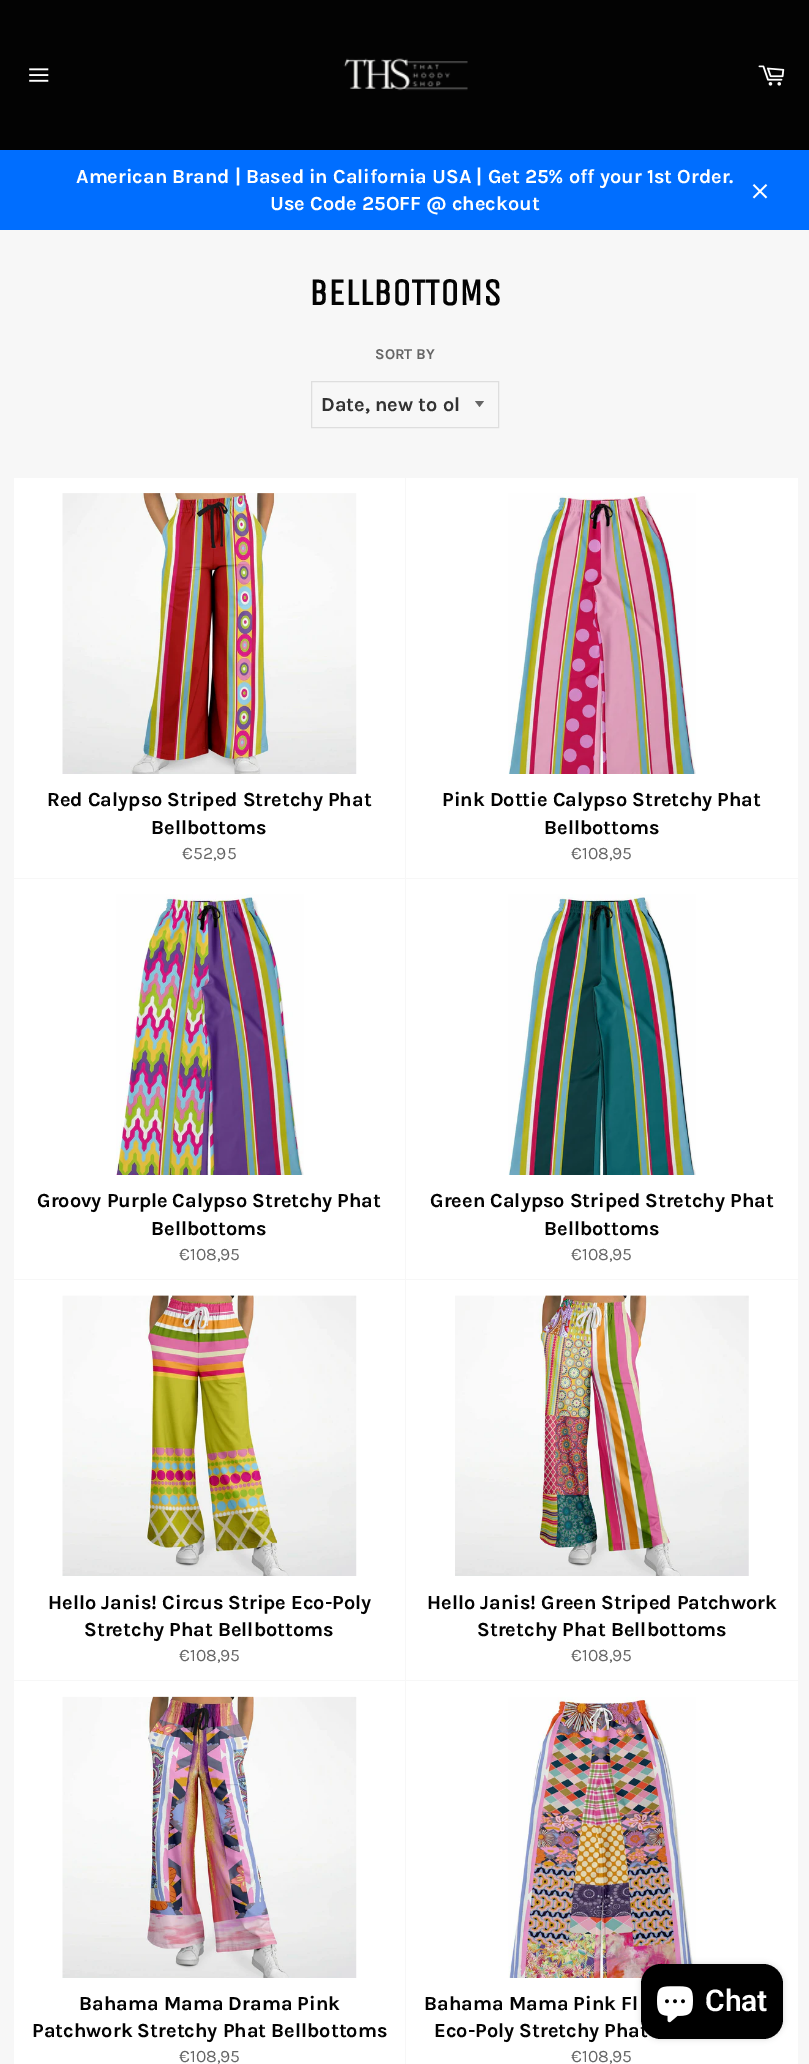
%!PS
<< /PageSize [809 2064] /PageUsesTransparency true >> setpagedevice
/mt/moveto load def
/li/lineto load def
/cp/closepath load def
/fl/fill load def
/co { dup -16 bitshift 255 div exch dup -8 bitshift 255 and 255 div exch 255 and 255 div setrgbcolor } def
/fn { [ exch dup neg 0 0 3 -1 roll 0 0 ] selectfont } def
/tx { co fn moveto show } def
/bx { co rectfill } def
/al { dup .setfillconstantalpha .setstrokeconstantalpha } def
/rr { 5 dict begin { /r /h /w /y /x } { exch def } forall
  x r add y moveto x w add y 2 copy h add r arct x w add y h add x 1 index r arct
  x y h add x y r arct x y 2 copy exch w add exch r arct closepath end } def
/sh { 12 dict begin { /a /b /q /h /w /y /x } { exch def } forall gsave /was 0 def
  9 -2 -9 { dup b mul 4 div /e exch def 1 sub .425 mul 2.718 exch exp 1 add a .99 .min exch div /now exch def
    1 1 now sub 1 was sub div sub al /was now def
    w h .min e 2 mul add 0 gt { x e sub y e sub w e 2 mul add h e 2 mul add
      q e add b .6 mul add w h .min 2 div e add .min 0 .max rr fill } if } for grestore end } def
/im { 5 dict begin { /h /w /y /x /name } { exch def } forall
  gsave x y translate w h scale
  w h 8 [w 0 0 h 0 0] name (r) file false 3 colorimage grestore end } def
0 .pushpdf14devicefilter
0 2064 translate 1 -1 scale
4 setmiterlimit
0 0 809 2064 16#F7F7F7 bx
0 0 809 150 16#030303 bx
(media/1.raw) 29 68 20 14 im
(media/2.raw) 343 58 125 33 im
(media/3.raw) 758 65 27 21 im
0 150 809 80 16#006EFF bx
(media/4.raw) 752 184 16 15 im
16#666666 co
475 401 mt 479.5 407 li 484 401 li cp fl
16#DEDEDE co
311.5 381.5 187 46 rectstroke
14 478 391 400 16#FFFFFF bx
(media/5.raw) 62 493 295 281 im
406 478 392 400 16#FFFFFF bx
(media/6.raw) 508 493 188 281 im
14 879 391 400 16#FFFFFF bx
(media/7.raw) 116 894 188 281 im
406 879 392 400 16#FFFFFF bx
(media/8.raw) 508 894 188 281 im
14 1280 391 400 16#FFFFFF bx
(media/9.raw) 62 1295 295 281 im
406 1280 392 400 16#FFFFFF bx
(media/10.raw) 455 1295 294 281 im
14 1681 391 383 16#FFFFFF bx
(media/11.raw) 62 1696 295 282 im
406 1681 392 383 16#FFFFFF bx
(media/12.raw) 508 1697 188 281 im
16#000000 co
641 1964 142 75 20 3 .15 sh
(American Brand | Based in California USA | Get 25% off your 1st Order.) 76 183 /Karla-Bold 20 16#FFFFFF tx
(Use Code 25OFF @ checkout) 270 210 /Karla-Bold 20 16#FFFFFF tx
(BELLBOTTOMS) 309 305 /UnicaOne-Bold 37.5 16#030303 tx
(SORT BY) 375 359 /Karla-Bold 15 16#666666 tx
(Date, new to ol) 321 411 /Karla-Bold 20 16#333333 tx
(Red Calypso Striped Stretchy Phat) 47 806 /Karla-Bold 20 16#030303 tx
(Bellbottoms) 151 834 /Karla-Bold 20 16#030303 tx
(€52,95) 182 859 /Karla-Regular 17.5 16#666666 tx
(Pink Dottie Calypso Stretchy Phat) 442 806 /Karla-Bold 20 16#030303 tx
(Bellbottoms) 544 834 /Karla-Bold 20 16#030303 tx
(€108,95) 571 859 /Karla-Regular 17.5 16#666666 tx
(Groovy Purple Calypso Stretchy Phat) 37 1207 /Karla-Bold 20 16#030303 tx
(Bellbottoms) 151 1235 /Karla-Bold 20 16#030303 tx
(€108,95) 179 1260 /Karla-Regular 17.5 16#666666 tx
(Green Calypso Striped Stretchy Phat) 430 1207 /Karla-Bold 20 16#030303 tx
(Bellbottoms) 544 1235 /Karla-Bold 20 16#030303 tx
(€108,95) 571 1260 /Karla-Regular 17.5 16#666666 tx
(Hello Janis! Circus Stripe Eco-Poly) 48 1609 /Karla-Bold 20 16#030303 tx
(Stretchy Phat Bellbottoms) 84 1636 /Karla-Bold 20 16#030303 tx
(€108,95) 179 1661 /Karla-Regular 17.5 16#666666 tx
(Hello Janis! Green Striped Patchwork) 427 1609 /Karla-Bold 20 16#030303 tx
(Stretchy Phat Bellbottoms) 477 1636 /Karla-Bold 20 16#030303 tx
(€108,95) 571 1661 /Karla-Regular 17.5 16#666666 tx
(Bahama Mama Drama Pink) 79 2010 /Karla-Bold 20 16#030303 tx
(Patchwork Stretchy Phat Bellbottoms) 32 2037 /Karla-Bold 20 16#030303 tx
(€108,95) 179 2062 /Karla-Regular 17.5 16#666666 tx
(Bahama Mama Pink Fl) 424 2010 /Karla-Bold 20 16#030303 tx
(Eco-Poly Stretchy Phat) 434 2037 /Karla-Bold 20 16#030303 tx
(€108,95) 571 2062 /Karla-Regular 17.5 16#666666 tx
16#000000 co
641 1964 142 75 20 rr fl
(media/13.raw) 657 1986 36 37 im
(Chat) 705 2011 /Roboto-SemiBold 30 16#FFFFFF tx
.poppdf14devicefilter showpage
